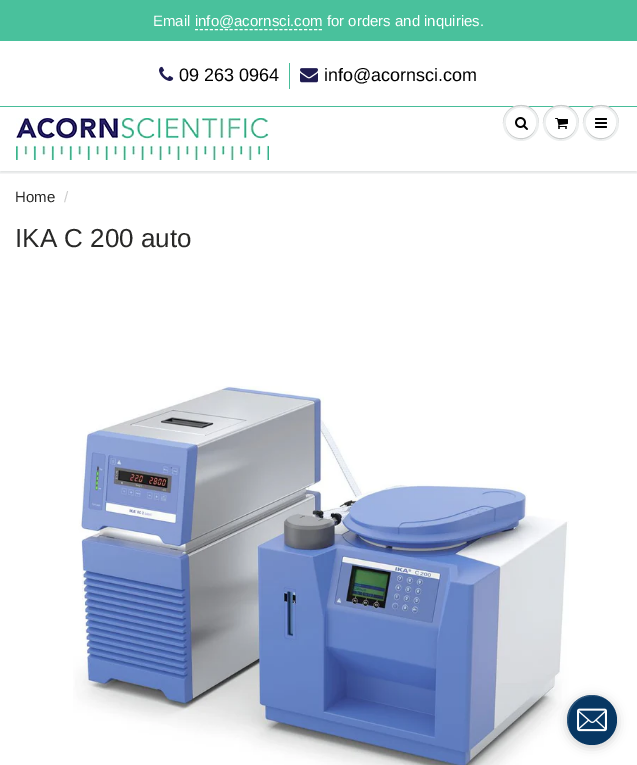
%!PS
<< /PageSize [637 765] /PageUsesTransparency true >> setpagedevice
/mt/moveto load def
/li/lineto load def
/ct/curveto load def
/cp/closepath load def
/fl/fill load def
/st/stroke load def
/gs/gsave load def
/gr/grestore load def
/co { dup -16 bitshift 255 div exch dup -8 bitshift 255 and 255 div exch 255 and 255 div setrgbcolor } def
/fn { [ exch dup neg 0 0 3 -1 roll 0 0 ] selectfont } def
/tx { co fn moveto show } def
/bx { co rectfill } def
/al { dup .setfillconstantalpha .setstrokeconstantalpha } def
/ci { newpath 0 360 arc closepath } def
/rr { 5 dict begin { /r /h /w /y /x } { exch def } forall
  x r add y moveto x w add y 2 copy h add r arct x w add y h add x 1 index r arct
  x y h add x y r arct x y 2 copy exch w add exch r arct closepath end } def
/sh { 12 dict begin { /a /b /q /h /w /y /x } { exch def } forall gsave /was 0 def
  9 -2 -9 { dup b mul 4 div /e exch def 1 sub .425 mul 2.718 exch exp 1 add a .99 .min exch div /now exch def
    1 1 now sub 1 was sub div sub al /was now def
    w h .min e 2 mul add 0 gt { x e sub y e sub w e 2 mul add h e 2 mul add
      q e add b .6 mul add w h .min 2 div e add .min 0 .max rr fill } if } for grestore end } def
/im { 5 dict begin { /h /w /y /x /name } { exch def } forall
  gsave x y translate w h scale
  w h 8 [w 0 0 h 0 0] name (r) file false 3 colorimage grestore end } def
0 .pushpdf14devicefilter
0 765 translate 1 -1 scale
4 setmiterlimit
0 0 637 765 16#FFFFFF bx
0 0 637 41 16#49C19C bx
16#FFFFFF co
[3 1.96] 0 setdash
195 29.5 mt 322 29.5 li st
(media/1.raw) 159 66 15 15 im
289 63 1 26 16#47BD99 bx
(media/2.raw) 300 68 18 15 im
gs
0 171 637 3 rectclip
16#0B191C co
0 108 637 65 0 1 .12 sh
gr
0 106 637 1 16#47BD99 bx
(media/3.raw) 16 118 253 42 im
16#EDEFEF co
521 123 18 ci fl
16#C9CBCB co
521 106 mt 533 106 539 114.5 539 123.5 ct 539 120 538 116 536 113 ct 526 98 502.5 105.5 503 123.5 ct 503 114.5 509 106 521 106 ct cp fl
536 123.5 mt 535.5 142.5 506.5 142.5 506 123.5 ct 505.5 138.5 525 145 533.5 132.5 ct 535 130 536 126.5 536 123.5 ct cp fl
16#FFFFFF co
521 123 15 ci fl
521 109 mt 531 109 536 116 536 123.5 ct 536 120.5 535 117 533.5 114.5 ct 525 102 505.5 108.5 506 123.5 ct 506 116 511 109 521 109 ct cp fl
(media/4.raw) 515 117 13 13 im
16#EDEFEF co
561 123 18 ci fl
16#C9CBCB co
561 106 mt 573 106 579 114.5 579 123.5 ct 579 120 578 116 576 113 ct 566 98 542.5 105.5 543 123.5 ct 543 114.5 549 106 561 106 ct cp fl
576 123.5 mt 575.5 142.5 546.5 142.5 546 123.5 ct 546 126.5 547 130 548.5 132.5 ct 557 145 576.5 138.5 576 123.5 ct cp fl
16#FFFFFF co
561 123 15 ci fl
561 109 mt 571 109 576 116 576 123.5 ct 576 120.5 575 117 573.5 114.5 ct 565 102 545.5 108.5 546 123.5 ct 546 116 551 109 561 109 ct cp fl
(media/5.raw) 555 118 13 11 im
16#EDEFEF co
601 123 18 ci fl
16#C9CBCB co
601 106 mt 613 106 619 114.5 619 123.5 ct 619 120 618 116 616 113 ct 606 98 582.5 105.5 583 123.5 ct 583 114.5 589 106 601 106 ct cp fl
616 123.5 mt 615.5 142.5 586.5 142.5 586 123.5 ct 586 126.5 587 130 588.5 132.5 ct 597 145 616.5 138.5 616 123.5 ct cp fl
16#FFFFFF co
601 123 15 ci fl
601 109 mt 611 109 616 116 616 123.5 ct 616 120.5 615 117 613.5 114.5 ct 605 102 585.5 108.5 586 123.5 ct 586 116 591 109 601 109 ct cp fl
(media/6.raw) 595 118 12 10 im
(media/7.raw) 73 386 496 379 im
16#808080 co
567 697 50 50 25 5.5 .4 sh
16#073763 co
592 720 25 ci fl
0.15 al
16#FFFFFF co
593 696 mt 598 696 602 697 606 699 ct 582 684 555 714 572 736 ct 563 721 570 696 593 696 ct cp fl
1 al
(media/8.raw) 577 708 30 24 im
(Email info@acornsci.com for orders and inquiries.) 153 26 /LiberationSans-Regular 15 16#FFFFFF tx
(09 263 0964) 179 81 /LiberationSans-Regular 18 16#000000 tx
(info@acornsci.com) 324 81 /LiberationSans-Regular 18 16#000000 tx
(Home) 15 202 /LiberationSans-Regular 15 16#282827 tx
(/) 64 202 /LiberationSans-Regular 15 16#CCCCCC tx
(IKA C 200 auto) 15 247 /LiberationSans-Regular 26 16#282827 tx
.poppdf14devicefilter showpage
